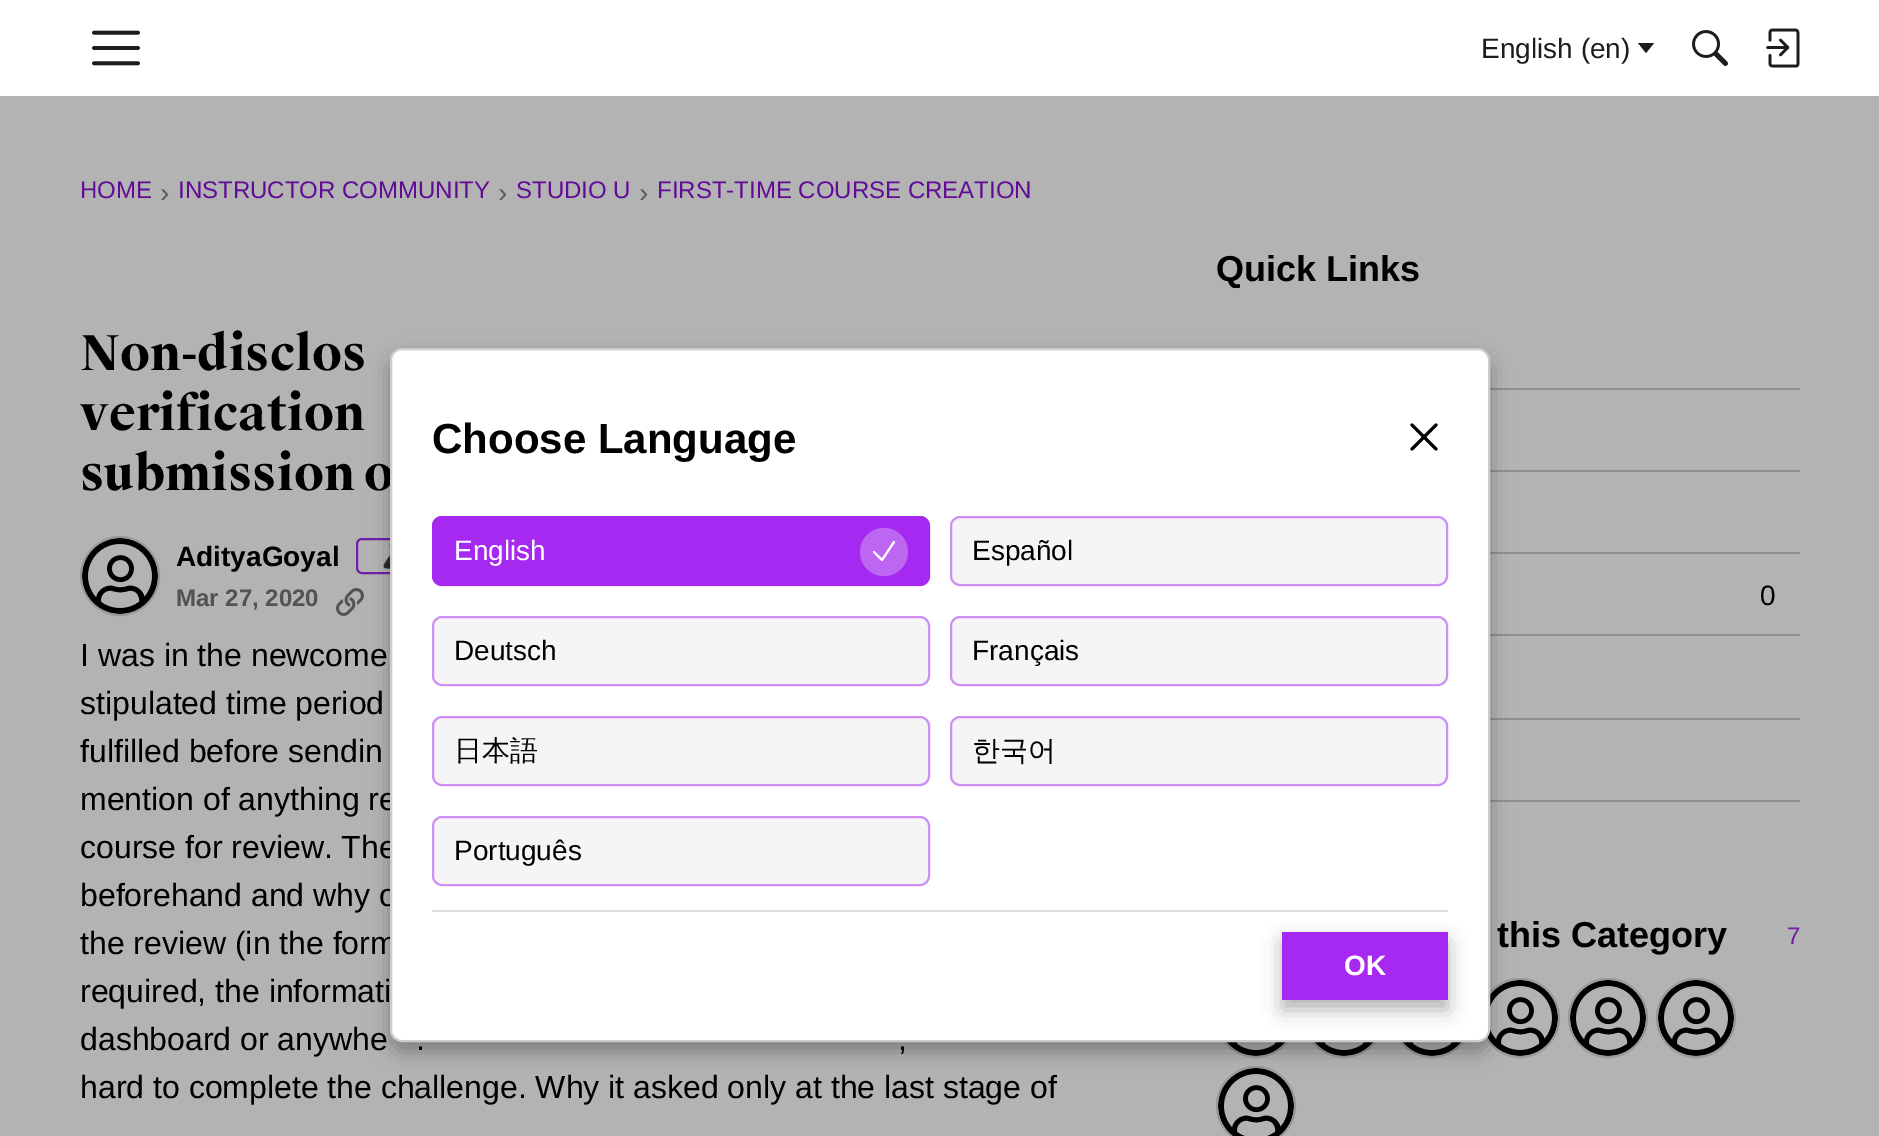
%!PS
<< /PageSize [1879 1136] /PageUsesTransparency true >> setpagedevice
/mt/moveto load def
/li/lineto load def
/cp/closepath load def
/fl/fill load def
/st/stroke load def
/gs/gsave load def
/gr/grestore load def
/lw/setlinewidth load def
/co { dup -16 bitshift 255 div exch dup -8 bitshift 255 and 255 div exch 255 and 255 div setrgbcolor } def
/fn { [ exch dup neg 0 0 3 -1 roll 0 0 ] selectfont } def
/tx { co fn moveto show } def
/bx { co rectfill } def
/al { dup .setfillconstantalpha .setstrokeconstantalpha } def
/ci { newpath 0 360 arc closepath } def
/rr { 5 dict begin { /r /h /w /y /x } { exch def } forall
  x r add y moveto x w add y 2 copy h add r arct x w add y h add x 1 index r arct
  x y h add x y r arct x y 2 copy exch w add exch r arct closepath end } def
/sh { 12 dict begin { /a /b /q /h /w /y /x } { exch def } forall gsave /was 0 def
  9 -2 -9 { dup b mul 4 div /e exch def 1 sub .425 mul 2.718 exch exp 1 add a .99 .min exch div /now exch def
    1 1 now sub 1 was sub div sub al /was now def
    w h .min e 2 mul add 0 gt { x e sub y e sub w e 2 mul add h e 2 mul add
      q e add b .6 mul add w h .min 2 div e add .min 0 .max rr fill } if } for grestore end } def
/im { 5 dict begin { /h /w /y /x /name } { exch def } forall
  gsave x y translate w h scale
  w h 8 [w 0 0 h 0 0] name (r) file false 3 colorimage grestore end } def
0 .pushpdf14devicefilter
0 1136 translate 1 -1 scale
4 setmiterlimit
0 0 1879 1136 16#B3B3B3 bx
0 0 1879 96 16#FFFFFF bx
(media/1.raw) 92 30 48 36 im
16#1C1D1F co
1638 43 mt 1654 43 li 1646 53 li cp fl
(media/2.raw) 1692 30 36 36 im
(media/3.raw) 1766 28 34 40 im
16#989898 co
2 lw
120 576 39 ci st
(media/4.raw) 82 538 76 76 im
16#731DA8 co
357 539 74 34 5 rr st
(media/5.raw) 383 543 7 26 im
(media/6.raw) 336 588 28 28 im
1490 388 310 2 16#8F8F8F bx
1490 470 310 2 16#8F8F8F bx
1490 552 310 2 16#8F8F8F bx
1490 634 310 2 16#8F8F8F bx
1490 718 310 2 16#8F8F8F bx
1490 800 310 2 16#8F8F8F bx
16#989898 co
1256 1018 39 ci st
(media/7.raw) 1226 1042 60 14 im
1344 1018 39 ci st
(media/7.raw) 1314 1042 60 14 im
1432 1018 39 ci st
(media/7.raw) 1402 1042 60 14 im
1520 1018 39 ci st
(media/8.raw) 1487 980 71 76 im
1608 1018 39 ci st
(media/4.raw) 1570 980 76 76 im
1696 1018 39 ci st
(media/4.raw) 1658 980 76 76 im
1256 1106 39 ci st
(media/9.raw) 1218 1068 76 68 im
16#000000 co
390 358 1100 694 12 10 .3 sh
(English \(en\)) 1481 58 /LiberationSans-Regular 28 16#1C1D1F tx
(HOME) 80 198 /LiberationSans-Regular 24 16#610B96 tx
(›) 160 202 /LiberationSans-Regular 28 16#5A5A5A tx
(INSTRUCTOR COMMUNITY) 178 198 /LiberationSans-Regular 24 16#610B96 tx
(›) 498 202 /LiberationSans-Regular 28 16#5A5A5A tx
(STUDIO U) 516 198 /LiberationSans-Regular 24 16#610B96 tx
(›) 639 202 /LiberationSans-Regular 28 16#5A5A5A tx
(FIRST-TIME COURSE CREATION) 657 198 /LiberationSans-Regular 24 16#610B96 tx
(Non-disclos) 80 370 /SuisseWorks-Bold 48 16#000000 tx
(verification) 80 430 /SuisseWorks-Bold 48 16#000000 tx
(submission o) 80 490 /SuisseWorks-Bold 48 16#000000 tx
(AdityaGoyal) 176 566 /LiberationSans-Bold 28 16#000000 tx
(Mar 27, 2020) 176 606 /LiberationSans-Bold 24 16#535353 tx
(I was in the newcome) 80 666 /LiberationSans-Regular 32 16#000000 tx
(stipulated time period) 80 714 /LiberationSans-Regular 32 16#000000 tx
(fulfilled before sendin) 80 762 /LiberationSans-Regular 32 16#000000 tx
(mention of anything re) 80 810 /LiberationSans-Regular 32 16#000000 tx
(course for review. The) 80 858 /LiberationSans-Regular 32 16#000000 tx
(beforehand and why o) 80 906 /LiberationSans-Regular 32 16#000000 tx
(the review \(in the form) 80 954 /LiberationSans-Regular 32 16#000000 tx
(required, the informati) 80 1002 /LiberationSans-Regular 32 16#000000 tx
(dashboard or anywhe) 80 1050 /LiberationSans-Regular 32 16#000000 tx
(.) 416 1050 /LiberationSans-Regular 32 16#000000 tx
(,) 898 1050 /LiberationSans-Regular 32 16#000000 tx
(hard to complete the challenge. Why it asked only at the last stage of) 80 1098 /LiberationSans-Regular 32 16#000000 tx
(Quick Links) 1216 281 /LiberationSans-Bold 36 16#000000 tx
(0) 1760 605 /LiberationSans-Regular 28 16#000000 tx
(this Category) 1497 947 /LiberationSans-Bold 36 16#000000 tx
(7) 1787 944 /LiberationSans-Regular 24 16#731DA8 tx
16#FFFFFF co
391 349 1098 692 11 rr gs fl gr
16#CCCCCC co
st
(Choose Language) 432 453 /LiberationSans-Bold 42 16#000000 tx
3 lw
1 setlinecap
1 setlinejoin
1412 449 mt 1436 425 li 1412 425 mt 1436 449 li st
16#A529F0 co
432 516 498 70 10 rr fl
0.5 al
2 lw
0 setlinecap
0 setlinejoin
433 517 496 68 9 rr st
1 al
(English) 454 560 /LiberationSans-Regular 28 16#FFFFFF tx
16#BC66F1 co
884 552 24 ci fl
16#FFFFFF co
1 setlinecap
1 setlinejoin
874 552 mt 882 560 li 894 542 li st
16#F5F5F6 co
950 516 498 70 10 rr fl
0.5 al
16#A529F0 co
0 setlinecap
0 setlinejoin
951 517 496 68 9 rr st
1 al
(Español) 972 560 /LiberationSans-Regular 28 16#000000 tx
16#F5F5F6 co
432 616 498 70 10 rr fl
0.5 al
16#A529F0 co
433 617 496 68 9 rr st
1 al
(Deutsch) 454 660 /LiberationSans-Regular 28 16#000000 tx
16#F5F5F6 co
950 616 498 70 10 rr fl
0.5 al
16#A529F0 co
951 617 496 68 9 rr st
1 al
(Français) 972 660 /LiberationSans-Regular 28 16#000000 tx
16#F5F5F6 co
432 716 498 70 10 rr fl
0.5 al
16#A529F0 co
433 717 496 68 9 rr st
1 al
(日本語) 454 760 /WenQuanYiZenHei-Medium 28 16#000000 tx
16#F5F5F6 co
950 716 498 70 10 rr fl
0.5 al
16#A529F0 co
951 717 496 68 9 rr st
1 al
(한국어) 972 760 /WenQuanYiZenHei-Medium 28 16#000000 tx
16#F5F5F6 co
432 816 498 70 10 rr fl
0.5 al
16#A529F0 co
433 817 496 68 9 rr st
1 al
(Português) 454 860 /LiberationSans-Regular 28 16#000000 tx
432 910 1016 2 16#DDDDDD bx
16#000000 co
1282 942 166 68 0 10 .3 sh
1282 932 166 68 16#A529F0 bx
(OK) 1344 975 /LiberationSans-Bold 28 16#FFFFFF tx
.poppdf14devicefilter showpage
